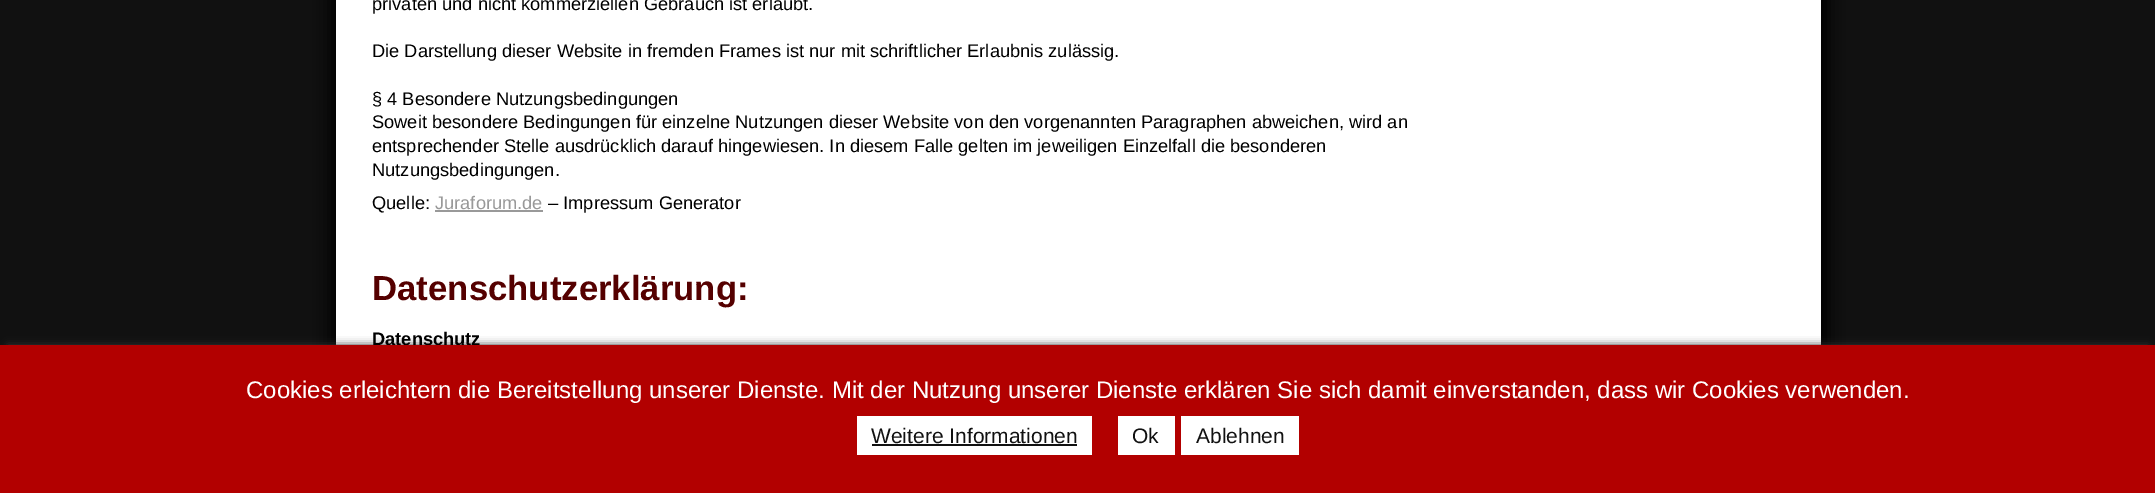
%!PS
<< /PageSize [2155 493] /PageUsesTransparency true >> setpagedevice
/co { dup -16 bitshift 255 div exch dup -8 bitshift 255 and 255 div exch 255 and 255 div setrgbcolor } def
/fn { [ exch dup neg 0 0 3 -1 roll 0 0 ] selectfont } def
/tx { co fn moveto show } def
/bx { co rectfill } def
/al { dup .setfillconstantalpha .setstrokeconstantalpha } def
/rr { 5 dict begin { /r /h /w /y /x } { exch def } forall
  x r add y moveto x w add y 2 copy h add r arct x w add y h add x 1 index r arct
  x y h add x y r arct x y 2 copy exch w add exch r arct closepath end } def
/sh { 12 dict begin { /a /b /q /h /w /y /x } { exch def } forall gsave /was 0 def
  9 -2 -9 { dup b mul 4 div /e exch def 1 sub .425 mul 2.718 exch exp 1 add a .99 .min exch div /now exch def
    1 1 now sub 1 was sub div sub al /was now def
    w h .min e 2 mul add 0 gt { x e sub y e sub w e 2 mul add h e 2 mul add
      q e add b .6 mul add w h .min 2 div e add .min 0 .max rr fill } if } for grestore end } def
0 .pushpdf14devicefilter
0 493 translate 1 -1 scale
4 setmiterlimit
0 0 2155 493 16#111111 bx
16#000000 co
329 -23 1500 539 0 7.5 1 sh
336 0 1485 345 16#FFFFFF bx
435 210 108 2 16#999999 bx
16#333333 co
8 345 2140 134 0 4 1 sh
(privaten und nicht kommerziellen Gebrauch ist erlaubt.) 372 10 /LiberationSans-Regular 18.25 16#000000 tx
(Die Darstellung dieser Website in fremden Frames ist nur mit schriftlicher Erlaubnis zulässig.) 372 57 /LiberationSans-Regular 18.25 16#000000 tx
(§ 4 Besondere Nutzungsbedingungen) 372 105 /LiberationSans-Regular 18.25 16#000000 tx
(Soweit besondere Bedingungen für einzelne Nutzungen dieser Website von den vorgenannten Paragraphen abweichen, wird an) 372 128 /LiberationSans-Regular 18.25 16#000000 tx
(entsprechender Stelle ausdrücklich darauf hingewiesen. In diesem Falle gelten im jeweiligen Einzelfall die besonderen) 372 152 /LiberationSans-Regular 18.25 16#000000 tx
(Nutzungsbedingungen.) 372 176 /LiberationSans-Regular 18.25 16#000000 tx
(Quelle:) 372 209 /LiberationSans-Regular 18.25 16#000000 tx
(Juraforum.de) 435 209 /LiberationSans-Regular 18.25 16#999999 tx
(– Impressum Generator) 548 209 /LiberationSans-Regular 18.25 16#000000 tx
(Datenschutzerklärung:) 372 300 /LiberationSans-Bold 34.75 16#550000 tx
(Datenschutz) 372 345 /LiberationSans-Bold 18.25 16#000000 tx
0 345 2155 148 16#B20000 bx
(Cookies erleichtern die Bereitstellung unserer Dienste. Mit der Nutzung unserer Dienste erklären Sie sich damit einverstanden, dass wir Cookies verwenden.) 246 398 /LiberationSans-Regular 24 16#FFFFFF tx
857 416 235 39 16#FFFFFF bx
(Weitere Informationen) 871 443 /LiberationSans-Regular 21 16#111111 tx
872 444 205 2 16#111111 bx
1118 416 57 39 16#FFFFFF bx
(Ok) 1132 443 /LiberationSans-Regular 21 16#111111 tx
1181 416 118 39 16#FFFFFF bx
(Ablehnen) 1196 443 /LiberationSans-Regular 21 16#111111 tx
.poppdf14devicefilter showpage
